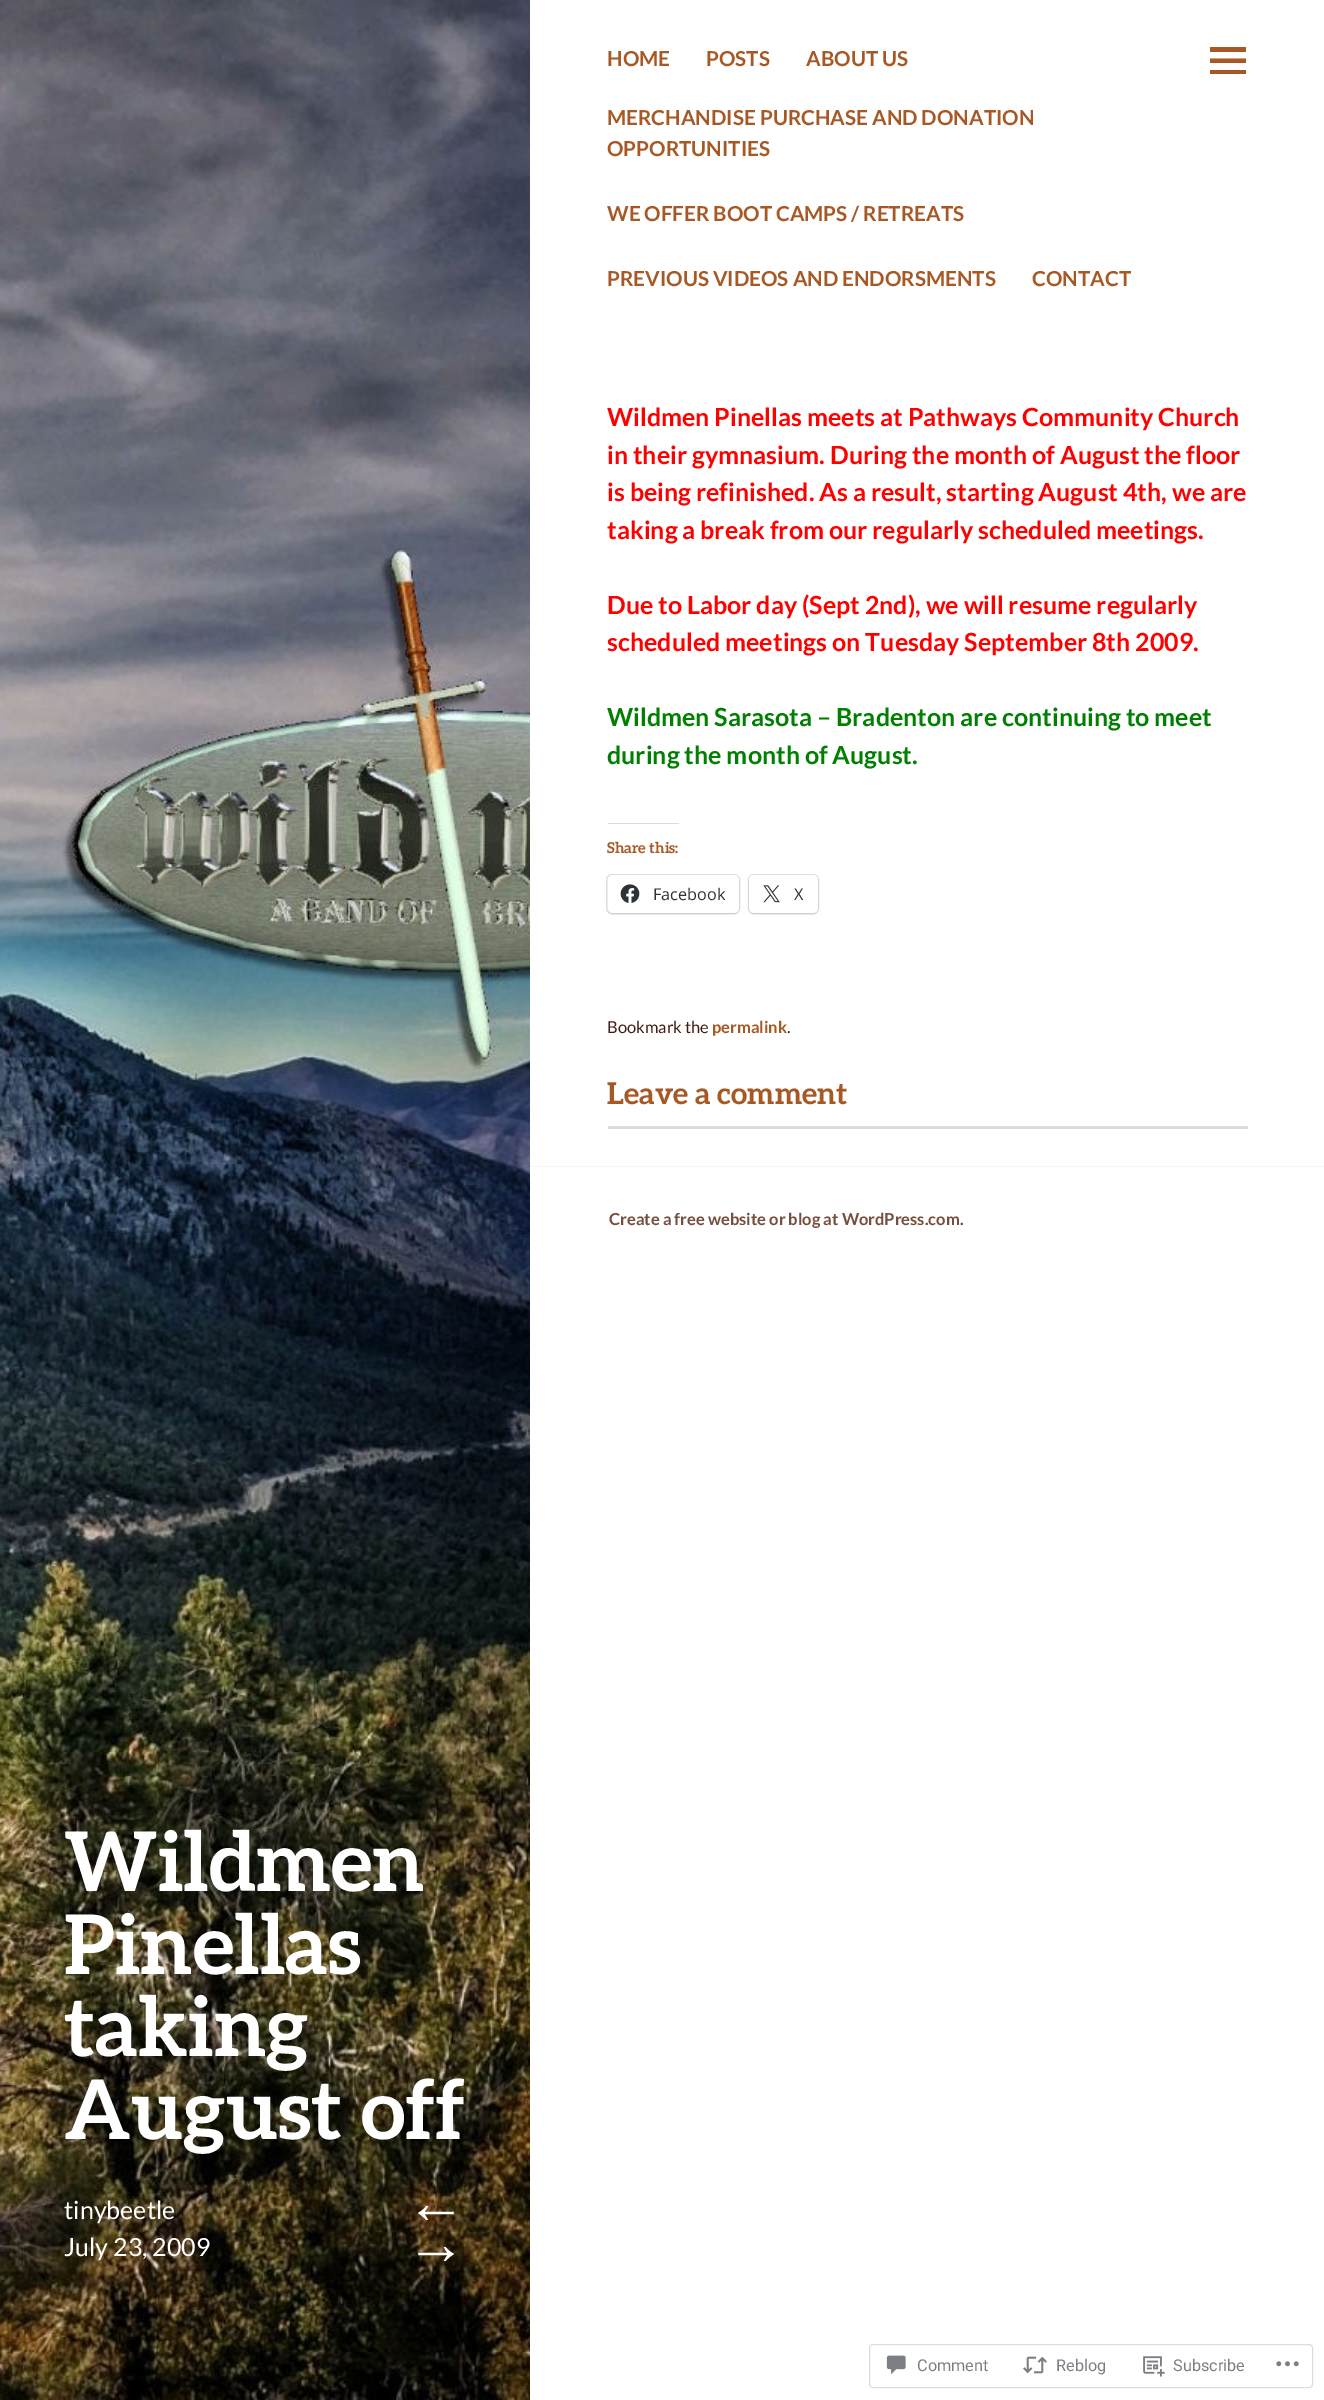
%!PS
<< /PageSize [1324 2400] /PageUsesTransparency true >> setpagedevice
/mt/moveto load def
/li/lineto load def
/cp/closepath load def
/fl/fill load def
/st/stroke load def
/co { dup -16 bitshift 255 div exch dup -8 bitshift 255 and 255 div exch 255 and 255 div setrgbcolor } def
/fn { [ exch dup neg 0 0 3 -1 roll 0 0 ] selectfont } def
/tx { co fn moveto show } def
/bx { co rectfill } def
/al { dup .setfillconstantalpha .setstrokeconstantalpha } def
/rr { 5 dict begin { /r /h /w /y /x } { exch def } forall
  x r add y moveto x w add y 2 copy h add r arct x w add y h add x 1 index r arct
  x y h add x y r arct x y 2 copy exch w add exch r arct closepath end } def
/sh { 12 dict begin { /a /b /q /h /w /y /x } { exch def } forall gsave /was 0 def
  9 -2 -9 { dup b mul 4 div /e exch def 1 sub .425 mul 2.718 exch exp 1 add a .99 .min exch div /now exch def
    1 1 now sub 1 was sub div sub al /was now def
    w h .min e 2 mul add 0 gt { x e sub y e sub w e 2 mul add h e 2 mul add
      q e add b .6 mul add w h .min 2 div e add .min 0 .max rr fill } if } for grestore end } def
/im { 5 dict begin { /h /w /y /x /name } { exch def } forall
  gsave x y translate w h scale
  w h 8 [w 0 0 h 0 0] name (r) file false 3 colorimage grestore end } def
0 .pushpdf14devicefilter
0 2400 translate 1 -1 scale
4 setmiterlimit
0 0 1324 2400 16#FFFFFF bx
16#A65925 co
1210 74 mt 1210 70 li 1246 70 li 1246 74 li cp 1210 47 mt 1246 47 li 1246 52 li 1210 52 li cp 1210 63 mt 1210 58.5 li 1246 58.5 li 1246 63 li cp fl
608 823 71 1 16#DCDCDE bx
16#E0E0E0 co
606.5 874.5 133 39 5.5 rr st
16#000000 co
608 876 131 38 5 1 .12 sh
16#FFFFFF co
608 875 131 38 5 rr fl
(media/1.raw) 620 884 20 19 im
16#E0E0E0 co
748.5 874.5 70 39 5.5 rr st
16#000000 co
749 876 69 38 5 1 .12 sh
16#FFFFFF co
749 875 69 38 5 rr fl
(media/2.raw) 763 885 17 18 im
608 1126 640 3 16#DCDCDE bx
530 1166 794 1 16#F5F6F5 bx
(media/3.raw) 0 0 530 2400 im
16#DDDDDF co
869.5 2344.5 443 43 3.5 rr st
(media/4.raw) 886 2355 20 20 im
(media/5.raw) 1023 2356 24 18 im
(media/6.raw) 1143 2356 22 21 im
(media/7.raw) 1276 2361 23 6 im
(HOME) 607 66 /Lato-Bold 20.6 16#A65925 tx
(POSTS) 706 66 /Lato-Bold 20.6 16#A65925 tx
(ABOUT US) 806 66 /Lato-Bold 20.6 16#A65925 tx
(MERCHANDISE PURCHASE AND DONATION) 607 125 /Lato-Bold 20.6 16#A65925 tx
(OPPORTUNITIES) 607 156 /Lato-Bold 20.6 16#A65925 tx
(WE OFFER BOOT CAMPS / RETREATS) 607 221 /Lato-Bold 20.6 16#A65925 tx
(PREVIOUS VIDEOS AND ENDORSMENTS) 607 286 /Lato-Bold 20.6 16#A65925 tx
(CONTACT) 1032 286 /Lato-Bold 20.6 16#A65925 tx
(Wildmen Pinellas meets at Pathways Community Church) 607 426 /Lato-Bold 25 16#FF0000 tx
(in their gymnasium. During the month of August the floor) 607 464 /Lato-Bold 25 16#FF0000 tx
(is being refinished. As a result, starting August 4th, we are) 607 501 /Lato-Bold 25 16#FF0000 tx
(taking a break from our regularly scheduled meetings.) 607 539 /Lato-Bold 25 16#FF0000 tx
(Due to Labor day \(Sept 2nd\), we will resume regularly) 607 614 /Lato-Bold 25 16#FF0000 tx
(scheduled meetings on Tuesday September 8th 2009.) 607 651 /Lato-Bold 25 16#FF0000 tx
(Wildmen Sarasota – Bradenton are continuing to meet) 607 726 /Lato-Bold 25 16#008000 tx
(during the month of August.) 607 764 /Lato-Bold 25 16#008000 tx
(Share this:) 607 853 /Aleo-Bold 15 16#A65925 tx
(Facebook) 653 900 /OpenSans-Regular 16.25 16#2C3338 tx
(X) 794 900 /OpenSans-Regular 16.25 16#2C3338 tx
(Bookmark the) 607 1033 /Lato-Regular 16.5 16#3F1D0F tx
(permalink) 712 1033 /Lato-Bold 16.5 16#A65925 tx
(.) 787 1033 /Lato-Regular 16.5 16#3F1D0F tx
(Leave a comment) 607 1104 /Aleo-Bold 30 16#A65925 tx
(Create a free website or blog at WordPress.com.) 609 1225 /Lato-Bold 16.5 16#754E3D tx
(Wildmen) 64 1891 /Aleo-Bold 82.5 16#FFFFFF tx
(Pinellas) 64 1974 /Aleo-Bold 82.5 16#FFFFFF tx
(taking) 64 2056 /Aleo-Bold 82.5 16#FFFFFF tx
(August off) 64 2139 /Aleo-Bold 82.5 16#FFFFFF tx
(tinybeetle) 64 2219 /Lato-Regular 25 16#FFFFFF tx
(July 23, 2009) 64 2256 /Lato-Regular 25 16#FFFFFF tx
(←) 406 2223 /LiberationSans-Bold 60 16#FFFFFF tx
(→) 406 2264 /LiberationSans-Bold 60 16#FFFFFF tx
(Comment) 917 2371 /Roboto-Regular 16.25 16#7B7F85 tx
(Reblog) 1056 2371 /Roboto-Regular 16.25 16#7B7F85 tx
(Subscribe) 1173 2371 /Roboto-Regular 16.25 16#7B7F85 tx
.poppdf14devicefilter showpage
